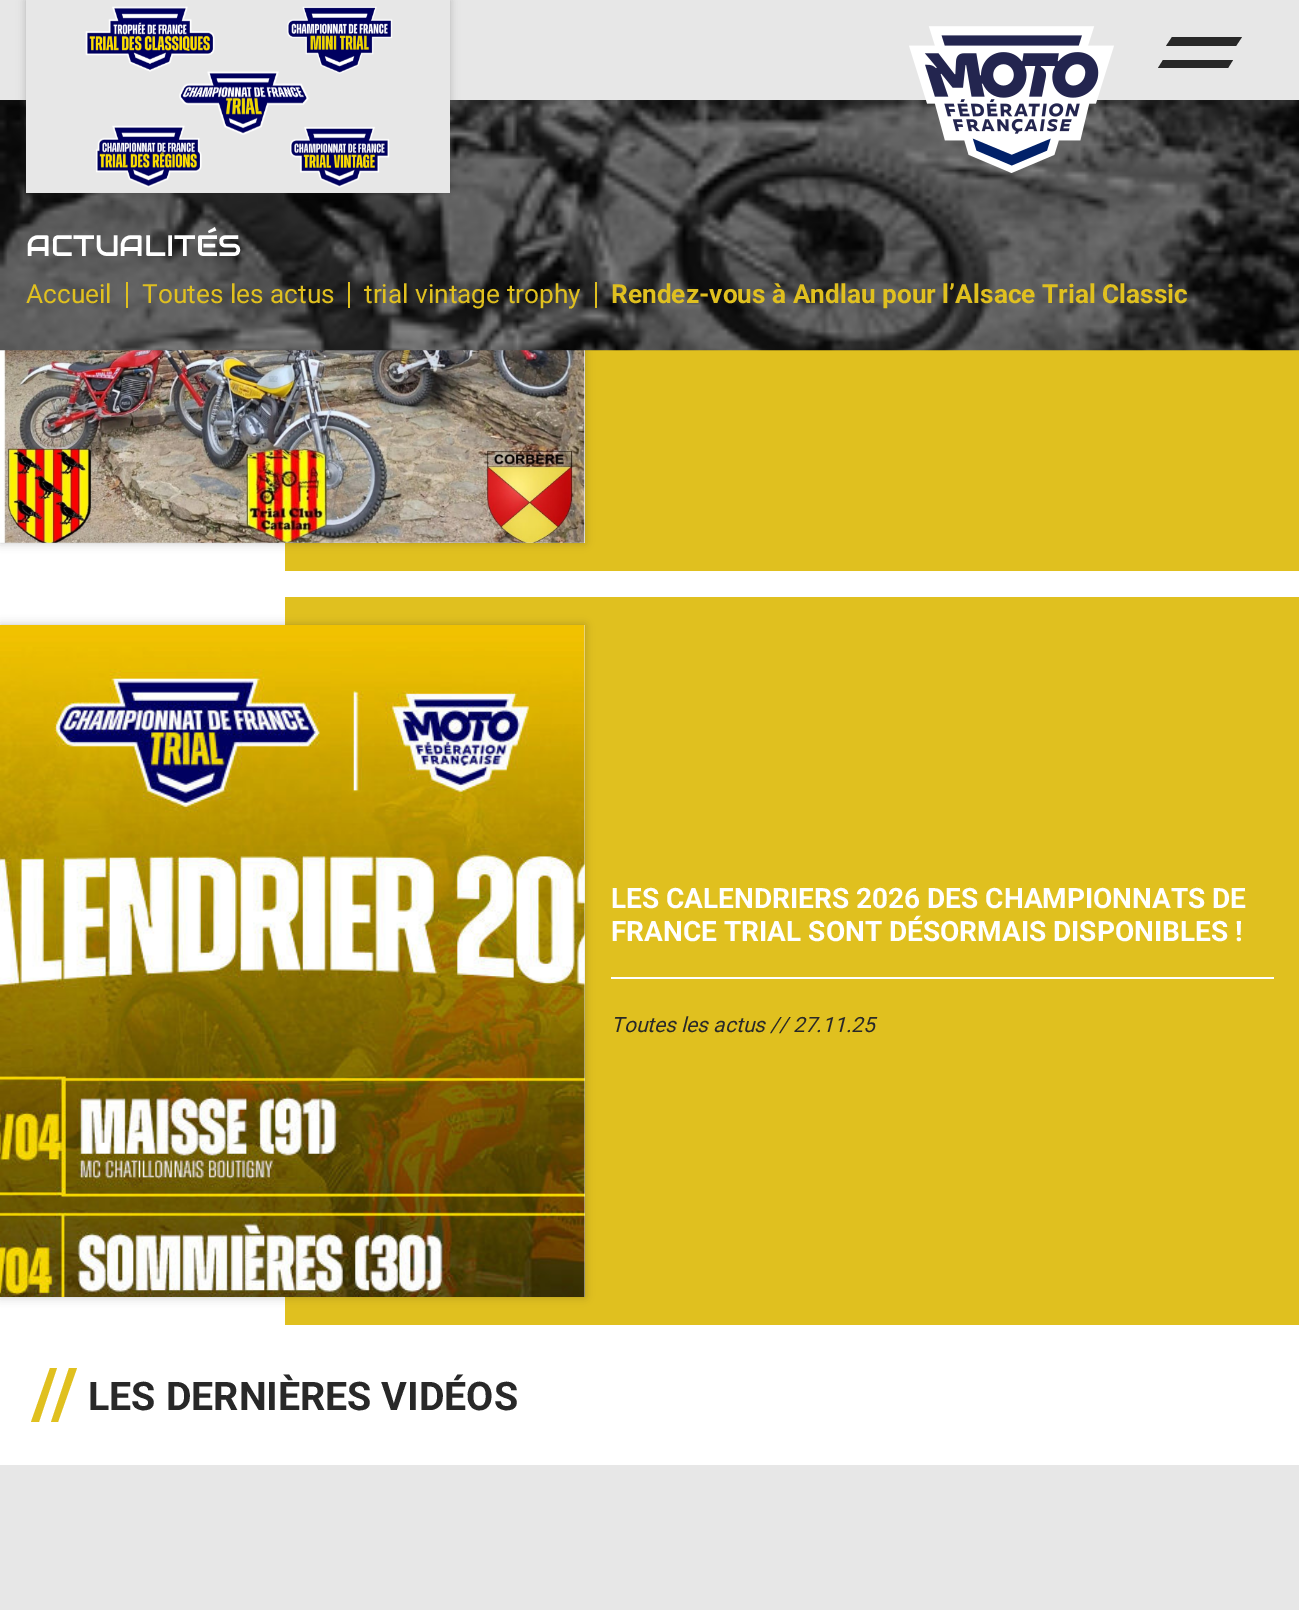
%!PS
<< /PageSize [1299 1610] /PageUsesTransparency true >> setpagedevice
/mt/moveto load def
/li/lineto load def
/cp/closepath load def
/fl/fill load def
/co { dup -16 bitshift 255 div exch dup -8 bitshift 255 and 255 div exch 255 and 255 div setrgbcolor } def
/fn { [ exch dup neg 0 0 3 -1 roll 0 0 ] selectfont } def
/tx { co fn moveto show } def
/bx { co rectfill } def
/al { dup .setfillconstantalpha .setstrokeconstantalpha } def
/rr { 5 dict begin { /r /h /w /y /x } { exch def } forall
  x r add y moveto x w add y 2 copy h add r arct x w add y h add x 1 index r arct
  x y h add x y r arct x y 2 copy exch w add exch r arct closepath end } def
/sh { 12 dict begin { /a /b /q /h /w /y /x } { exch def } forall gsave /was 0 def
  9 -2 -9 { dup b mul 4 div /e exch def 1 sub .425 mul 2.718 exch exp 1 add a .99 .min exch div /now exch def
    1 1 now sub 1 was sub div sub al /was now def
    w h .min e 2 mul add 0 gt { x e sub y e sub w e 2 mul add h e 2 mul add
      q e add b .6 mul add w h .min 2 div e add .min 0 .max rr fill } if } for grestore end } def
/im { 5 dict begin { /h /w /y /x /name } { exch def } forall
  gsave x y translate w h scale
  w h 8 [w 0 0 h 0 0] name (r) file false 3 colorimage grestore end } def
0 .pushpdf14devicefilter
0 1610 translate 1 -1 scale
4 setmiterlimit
0 0 1299 1610 16#FFFFFF bx
285 350 1014 221 16#E0C01F bx
16#282828 co
0 -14 585 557 0 4.5 .25 sh
0 350 585 193 16#E7E7E7 bx
(media/4.raw) 0 350 585 193 im
(media/3.raw) 0 100 1299 251 im
16#282828 co
0 0 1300 100 0 4.5 .25 sh
0 0 1299 100 16#E7E7E7 bx
16#282828 co
1172 37 mt 1242 37 li 1236 46 li 1166 46 li cp fl
1163 60 mt 1233 60 li 1228 68 li 1158 68 li cp fl
26 0 424 193 0 4.5 .25 sh
26 0 424 193 16#E7E7E7 bx
(media/1.raw) 85 6 308 182 im
(media/2.raw) 909 26 205 147 im
126 282 2 26 16#E0C01F bx
348 282 2 26 16#E0C01F bx
595 282 2 26 16#E0C01F bx
285 597 1014 728 16#E0C01F bx
16#282828 co
0 625 585 672 0 4.5 .25 sh
584 625 1 672 16#E7E7E7 bx
(media/5.raw) 0 625 585 672 im
611 977 663 2 16#FFFFFF bx
16#E0C01F co
39 1422 mt 31 1422 li 50 1368 li 57 1368 li cp 58 1422 mt 51 1422 li 69 1368 li 77 1368 li cp fl
0 1465 1299 145 16#E7E7E7 bx
(ACTUALITÉS) 26 256 /Audiowide-Regular 29.75 16#FFFFFF tx
(Accueil) 26 303 /Roboto-Regular 26.25 16#E0C01F tx
(Toutes les actus) 142 303 /Roboto-Regular 26.25 16#E0C01F tx
(trial vintage trophy) 364 303 /Roboto-Regular 26.25 16#E0C01F tx
(Rendez-vous à Andlau pour l’Alsace Trial Classic) 611 303 /Roboto-Bold 26.25 16#E0C01F tx
(LES CALENDRIERS 2026 DES CHAMPIONNATS DE) 611 908 /Roboto-Bold 28 16#FFFFFF tx
(FRANCE TRIAL SONT DÉSORMAIS DISPONIBLES !) 611 941 /Roboto-Bold 28 16#FFFFFF tx
(Toutes les actus // 27.11.25) 611 1032 /Roboto-Italic 21 16#282828 tx
(LES DERNIÈRES VIDÉOS) 88 1410 /Roboto-Bold 39.4 16#282828 tx
.poppdf14devicefilter showpage
